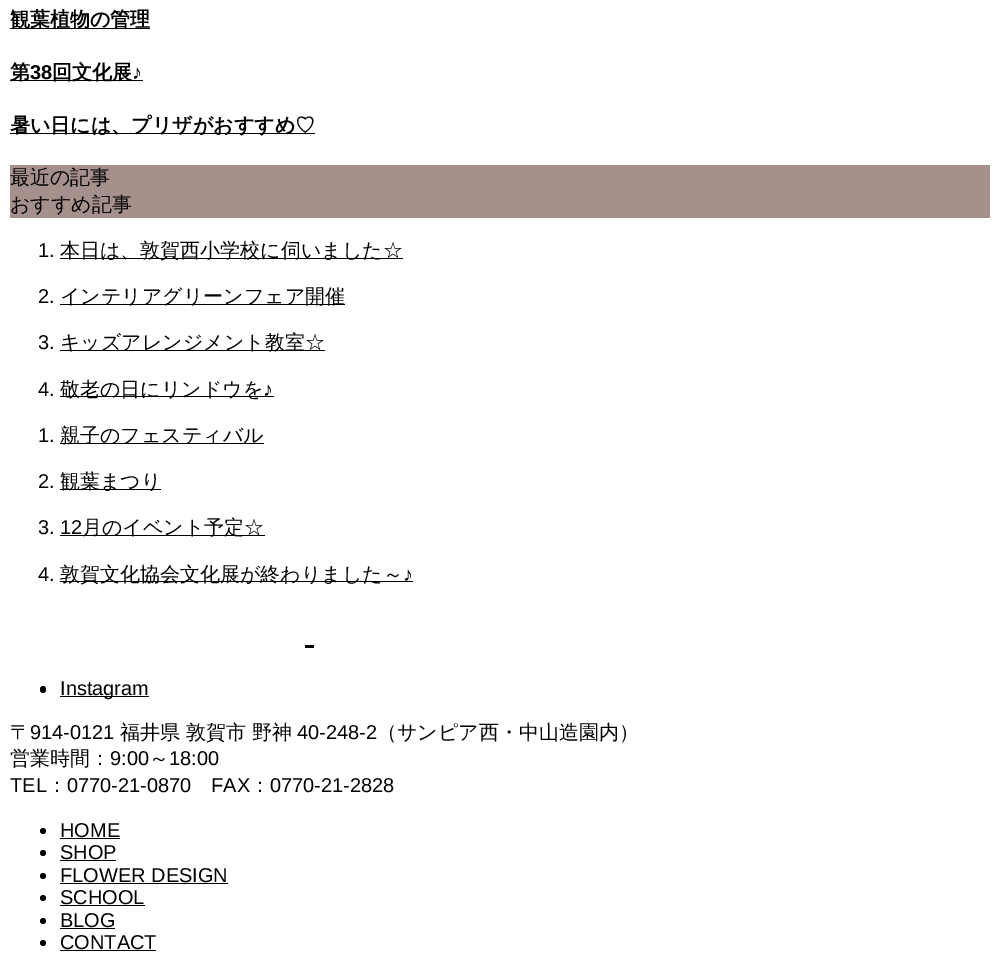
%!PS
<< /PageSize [999 972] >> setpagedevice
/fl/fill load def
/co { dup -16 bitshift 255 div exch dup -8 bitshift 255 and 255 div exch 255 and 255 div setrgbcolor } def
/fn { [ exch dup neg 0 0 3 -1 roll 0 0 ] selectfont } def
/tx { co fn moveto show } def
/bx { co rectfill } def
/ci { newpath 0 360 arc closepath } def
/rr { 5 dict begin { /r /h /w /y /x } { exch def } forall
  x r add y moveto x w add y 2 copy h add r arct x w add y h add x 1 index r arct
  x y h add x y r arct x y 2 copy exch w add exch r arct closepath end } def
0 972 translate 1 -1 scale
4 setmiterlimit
0 0 999 972 16#FFFFFF bx
10 28 140 1 16#000000 bx
10 80 133 1 16#000000 bx
10 133 305 1 16#000000 bx
10 165 980 53 16#A5908B bx
60 258 343 1 16#000000 bx
60 304 285 1 16#000000 bx
60 350 265 1 16#000000 bx
60 396 214 1 16#000000 bx
60 443 204 1 16#000000 bx
60 489 101 1 16#000000 bx
60 535 205 1 16#000000 bx
60 581 353 1 16#000000 bx
305 645 9 3 16#000000 bx
40 686 6 7 3 rr fl
60 696 89 1 16#000000 bx
43 831 3 ci fl
60 838 60 1 16#000000 bx
43 853 3 ci fl
60 860 56 1 16#000000 bx
43 876 3 ci fl
60 883 168 1 16#000000 bx
43 898 3 ci fl
60 905 85 1 16#000000 bx
43 921 3 ci fl
60 928 55 1 16#000000 bx
43 943 3 ci fl
60 950 96 1 16#000000 bx
(観葉植物の管理) 10 26 /WenQuanYiZenHei-Bold 20 16#000000 tx
(第) 10 79 /WenQuanYiZenHei-Bold 20 16#000000 tx
(38) 30 79 /LiberationSans-Bold 20 16#000000 tx
(回文化展) 52 79 /WenQuanYiZenHei-Bold 20 16#000000 tx
(♪) 132 79 /LiberationSans-Bold 20 16#000000 tx
(暑い日には、プリザがおすすめ♡) 10 132 /WenQuanYiZenHei-Bold 20 16#000000 tx
(最近の記事) 10 184 /WenQuanYiZenHei-Medium 20 16#000000 tx
(おすすめ記事) 10 211 /WenQuanYiZenHei-Medium 20 16#000000 tx
(1.) 38 257 /LiberationSans-Regular 20 16#000000 tx
(本日は、敦賀西小学校に伺いました☆) 60 257 /WenQuanYiZenHei-Medium 20 16#000000 tx
(2.) 38 303 /LiberationSans-Regular 20 16#000000 tx
(インテリアグリーンフェア開催) 60 303 /WenQuanYiZenHei-Medium 20 16#000000 tx
(3.) 38 349 /LiberationSans-Regular 20 16#000000 tx
(キッズアレンジメント教室☆) 60 349 /WenQuanYiZenHei-Medium 20 16#000000 tx
(4.) 38 396 /LiberationSans-Regular 20 16#000000 tx
(敬老の日にリンドウを) 60 396 /WenQuanYiZenHei-Medium 20 16#000000 tx
(♪) 263 396 /LiberationSans-Regular 20 16#000000 tx
(1.) 38 442 /LiberationSans-Regular 20 16#000000 tx
(親子のフェスティバル) 60 442 /WenQuanYiZenHei-Medium 20 16#000000 tx
(2.) 38 488 /LiberationSans-Regular 20 16#000000 tx
(観葉まつり) 60 488 /WenQuanYiZenHei-Medium 20 16#000000 tx
(3. 12) 38 534 /LiberationSans-Regular 20 16#000000 tx
(月のイベント予定☆) 82 534 /WenQuanYiZenHei-Medium 20 16#000000 tx
(4.) 38 581 /LiberationSans-Regular 20 16#000000 tx
(敦賀文化協会文化展が終わりました～) 60 581 /WenQuanYiZenHei-Medium 20 16#000000 tx
(♪) 403 581 /LiberationSans-Regular 20 16#000000 tx
(Instagram) 60 695 /LiberationSans-Regular 20 16#000000 tx
(〒) 10 739 /WenQuanYiZenHei-Medium 20 16#000000 tx
(914-0121) 30 739 /LiberationSans-Regular 20 16#000000 tx
(福井県 敦賀市 野神) 120 739 /WenQuanYiZenHei-Medium 20 16#000000 tx
(40-248-2) 297 739 /LiberationSans-Regular 20 16#000000 tx
(（サンピア西・中山造園内）) 377 739 /WenQuanYiZenHei-Medium 20 16#000000 tx
(営業時間：) 10 765 /WenQuanYiZenHei-Medium 20 16#000000 tx
(9:00) 110 765 /LiberationSans-Regular 20 16#000000 tx
(～) 149 765 /WenQuanYiZenHei-Medium 20 16#000000 tx
(18:00) 169 765 /LiberationSans-Regular 20 16#000000 tx
(TEL) 10 792 /LiberationSans-Regular 20 16#000000 tx
(：) 47 792 /WenQuanYiZenHei-Medium 20 16#000000 tx
(0770-21-0870) 67 792 /LiberationSans-Regular 20 16#000000 tx
(FAX) 211 792 /LiberationSans-Regular 20 16#000000 tx
(：) 250 792 /WenQuanYiZenHei-Medium 20 16#000000 tx
(0770-21-2828) 270 792 /LiberationSans-Regular 20 16#000000 tx
(HOME) 60 837 /LiberationSans-Regular 20 16#000000 tx
(SHOP) 60 859 /LiberationSans-Regular 20 16#000000 tx
(FLOWER DESIGN) 60 882 /LiberationSans-Regular 20 16#000000 tx
(SCHOOL) 60 904 /LiberationSans-Regular 20 16#000000 tx
(BLOG) 60 927 /LiberationSans-Regular 20 16#000000 tx
(CONTACT) 60 949 /LiberationSans-Regular 20 16#000000 tx
showpage
